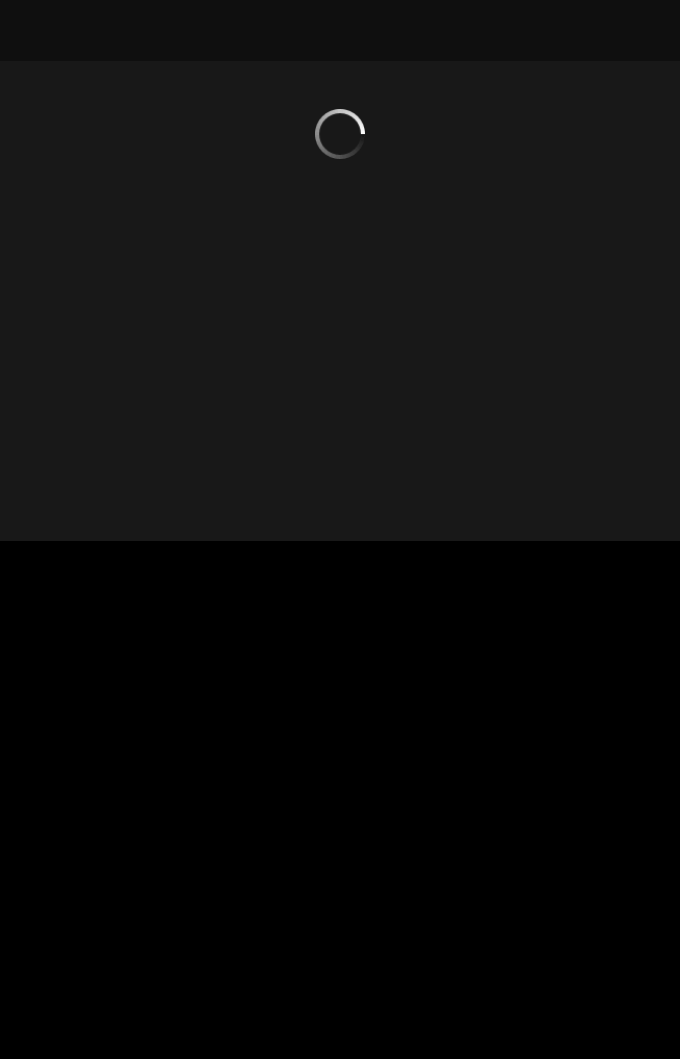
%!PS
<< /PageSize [680 1059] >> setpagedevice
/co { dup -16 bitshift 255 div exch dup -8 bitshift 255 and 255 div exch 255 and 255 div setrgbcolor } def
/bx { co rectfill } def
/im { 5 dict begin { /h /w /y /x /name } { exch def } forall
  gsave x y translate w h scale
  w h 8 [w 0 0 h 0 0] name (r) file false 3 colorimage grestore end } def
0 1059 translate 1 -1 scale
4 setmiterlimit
0 0 680 1059 16#000000 bx
0 61 680 480 16#181818 bx
0 0 680 61 16#0F0F0F bx
(media/1.raw) 315 109 50 50 im
showpage
